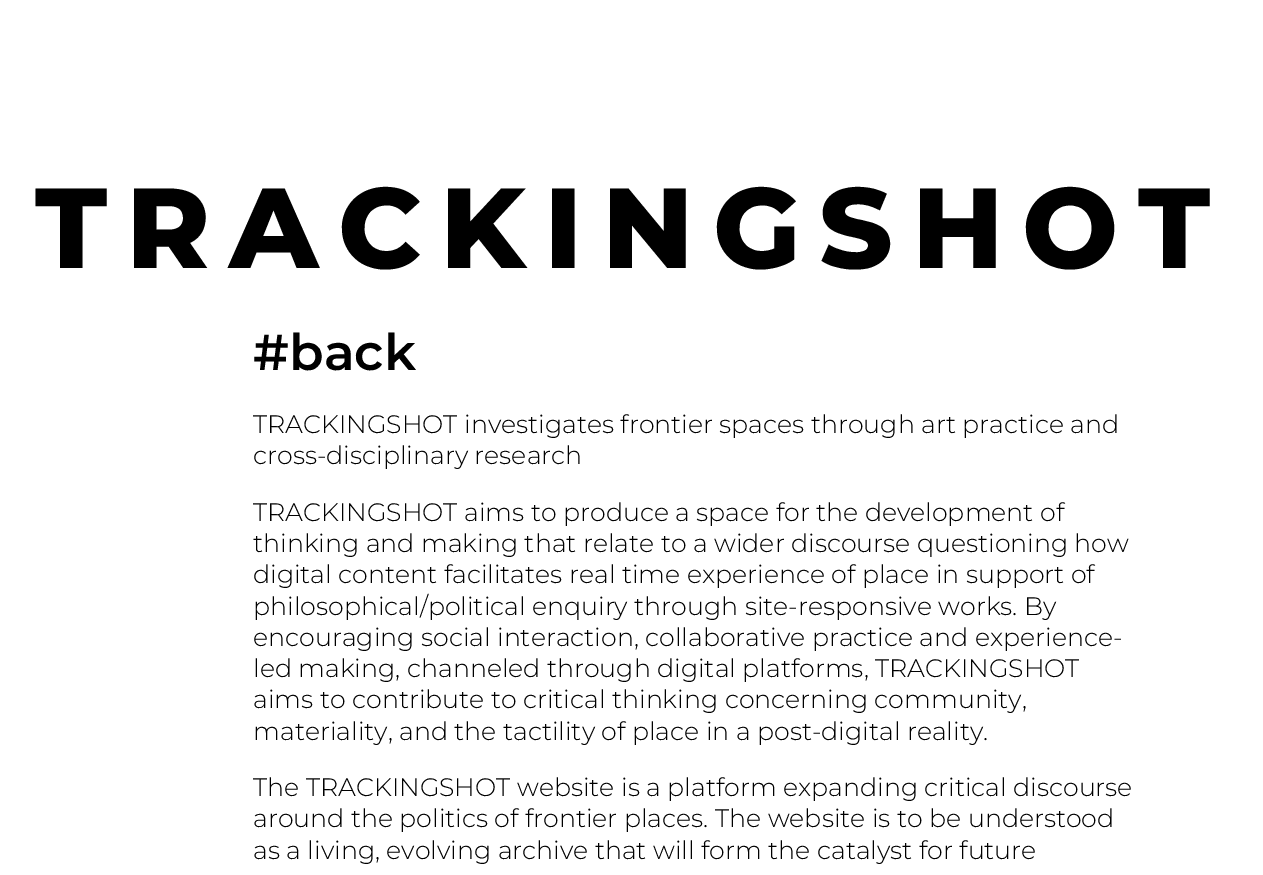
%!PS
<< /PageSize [1263 875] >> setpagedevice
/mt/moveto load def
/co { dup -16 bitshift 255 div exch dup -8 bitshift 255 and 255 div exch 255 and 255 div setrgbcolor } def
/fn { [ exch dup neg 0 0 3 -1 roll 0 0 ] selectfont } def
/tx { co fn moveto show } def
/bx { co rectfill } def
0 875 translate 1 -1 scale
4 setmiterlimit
0 0 1263 875 16#FFFFFF bx
/Montserrat-ExtraBold 113.75 fn
16#000000 co
35 268 mt 19 0 (TRACKINGSHOT) ashow
(#back) 253 370 /Montserrat-SemiBold 50.5 16#000000 tx
(TRACKINGSHOT investigates frontier spaces through art practice and) 253 433 /Montserrat-Light 25.25 16#000000 tx
(cross-disciplinary research) 253 464 /Montserrat-Light 25.25 16#000000 tx
(TRACKINGSHOT aims to produce a space for the development of) 253 521 /Montserrat-Light 25.25 16#000000 tx
(thinking and making that relate to a wider discourse questioning how) 253 552 /Montserrat-Light 25.25 16#000000 tx
(digital content facilitates real time experience of place in support of) 253 583 /Montserrat-Light 25.25 16#000000 tx
(philosophical/political enquiry through site-responsive works. By) 253 615 /Montserrat-Light 25.25 16#000000 tx
(encouraging social interaction, collaborative practice and experience-) 253 646 /Montserrat-Light 25.25 16#000000 tx
(led making, channeled through digital platforms, TRACKINGSHOT) 253 677 /Montserrat-Light 25.25 16#000000 tx
(aims to contribute to critical thinking concerning community,) 253 708 /Montserrat-Light 25.25 16#000000 tx
(materiality, and the tactility of place in a post-digital reality.) 253 740 /Montserrat-Light 25.25 16#000000 tx
(The TRACKINGSHOT website is a platform expanding critical discourse) 253 796 /Montserrat-Light 25.25 16#000000 tx
(around the politics of frontier places. The website is to be understood) 253 827 /Montserrat-Light 25.25 16#000000 tx
(as a living, evolving archive that will form the catalyst for future) 253 859 /Montserrat-Light 25.25 16#000000 tx
showpage
